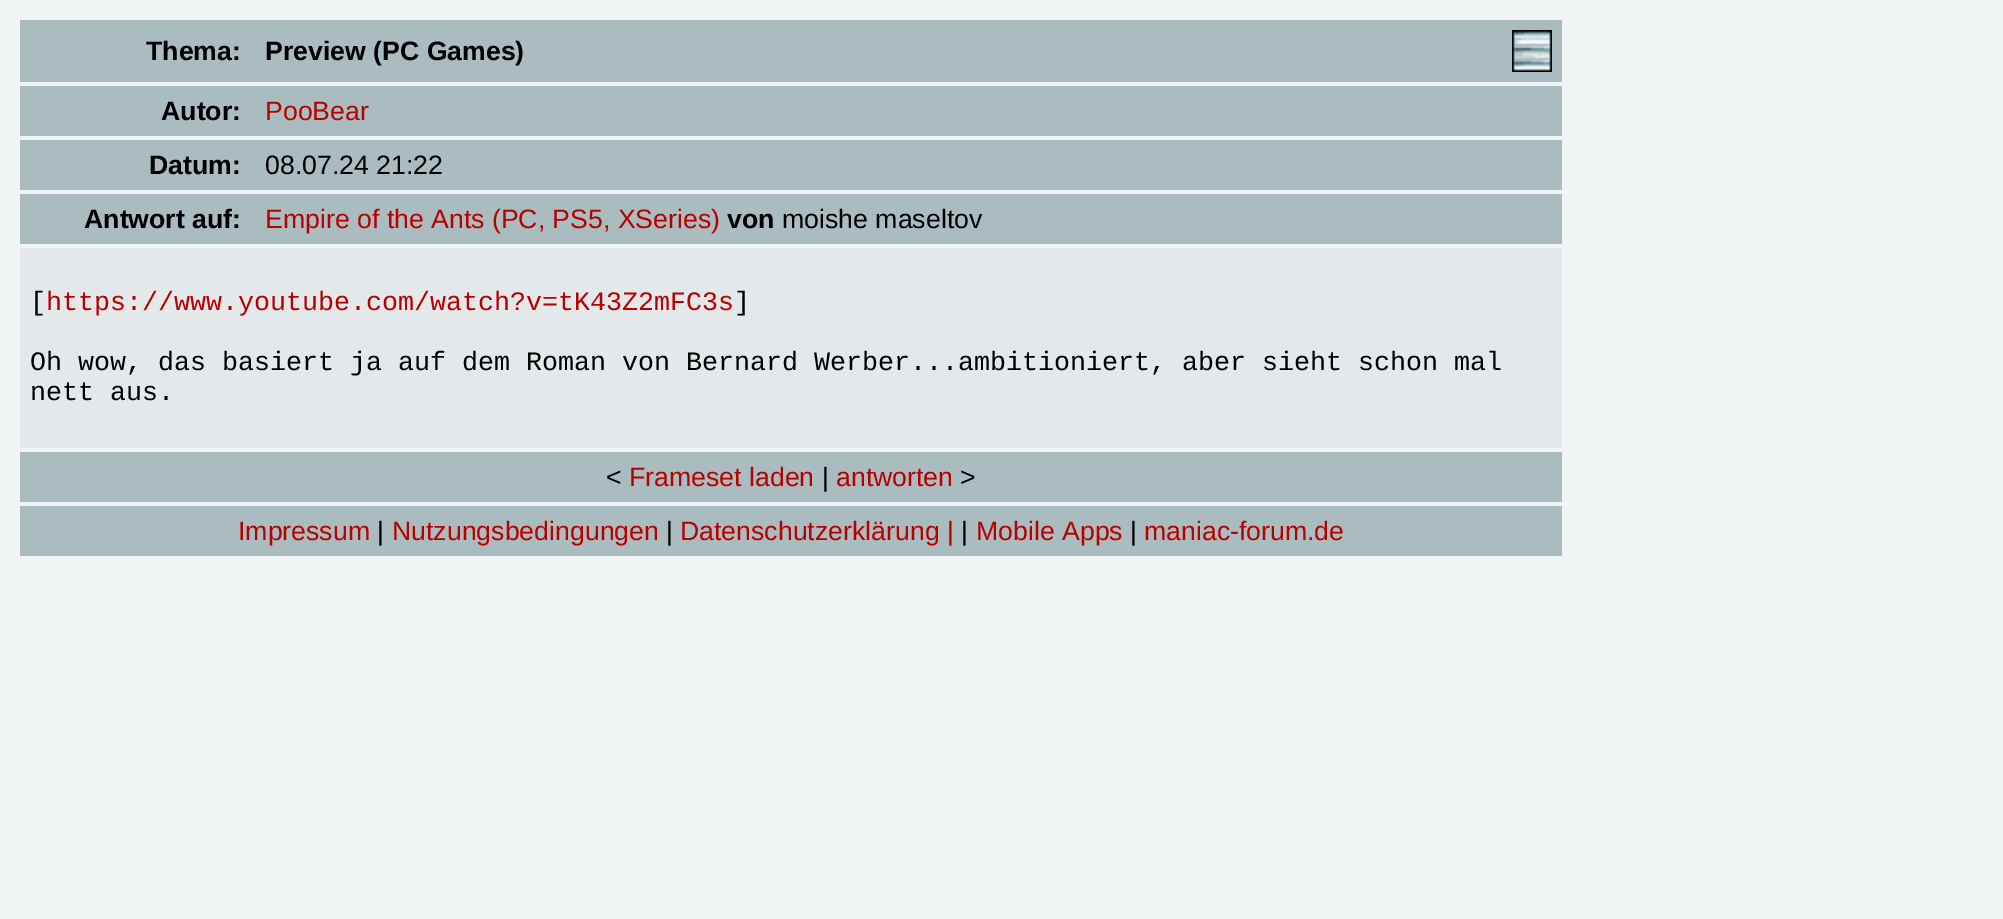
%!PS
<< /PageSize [2003 919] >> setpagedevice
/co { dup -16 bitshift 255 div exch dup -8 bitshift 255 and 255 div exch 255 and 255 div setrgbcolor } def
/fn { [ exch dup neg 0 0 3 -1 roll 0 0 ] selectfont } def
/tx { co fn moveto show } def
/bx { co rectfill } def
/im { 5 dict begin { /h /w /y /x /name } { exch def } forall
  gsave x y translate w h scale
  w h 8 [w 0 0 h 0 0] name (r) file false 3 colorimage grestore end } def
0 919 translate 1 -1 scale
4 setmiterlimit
0 0 2003 919 16#F1F4F5 bx
20 20 1542 62 16#ABBCC0 bx
(media/1.raw) 1512 30 40 42 im
20 86 1542 50 16#ABBCC0 bx
20 140 1542 50 16#ABBCC0 bx
20 194 1542 50 16#ABBCC0 bx
20 248 1542 200 16#E3E9EA bx
20 452 1542 50 16#ABBCC0 bx
20 506 1542 50 16#ABBCC0 bx
(Thema:) 146 60 /LiberationSans-Bold 26.67 16#000000 tx
(Preview \(PC Games\)) 265 60 /LiberationSans-Bold 26.67 16#000000 tx
(Autor:) 161 120 /LiberationSans-Bold 26.67 16#000000 tx
(PooBear) 265 120 /LiberationSans-Regular 26.67 16#B70000 tx
(Datum:) 149 174 /LiberationSans-Bold 26.67 16#000000 tx
(08.07.24 21:22) 265 174 /LiberationSans-Regular 26.67 16#000000 tx
(Antwort auf:) 84 228 /LiberationSans-Bold 26.67 16#000000 tx
(Empire of the Ants \(PC, PS5, XSeries\)) 265 228 /LiberationSans-Regular 26.67 16#B70000 tx
(von) 727 228 /LiberationSans-Bold 26.67 16#000000 tx
(moishe maseltov) 782 228 /LiberationSans-Regular 26.67 16#000000 tx
([) 30 310 /LiberationMono-Regular 26.67 16#000000 tx
(https://www.youtube.com/watch?v=tK43Z2mFC3s) 46 310 /LiberationMono-Regular 26.67 16#B70000 tx
(]) 734 310 /LiberationMono-Regular 26.67 16#000000 tx
(Oh wow, das basiert ja auf dem Roman von Bernard Werber...ambitioniert, aber sieht schon mal) 30 370 /LiberationMono-Regular 26.67 16#000000 tx
(nett aus.) 30 400 /LiberationMono-Regular 26.67 16#000000 tx
(<) 606 486 /LiberationSans-Regular 26.67 16#000000 tx
(Frameset laden) 629 486 /LiberationSans-Regular 26.67 16#B70000 tx
(|) 822 486 /LiberationSans-Regular 26.67 16#000000 tx
(antworten) 836 486 /LiberationSans-Regular 26.67 16#B70000 tx
(>) 960 486 /LiberationSans-Regular 26.67 16#000000 tx
(Impressum) 238 540 /LiberationSans-Regular 26.67 16#B70000 tx
(|) 377 540 /LiberationSans-Regular 26.67 16#000000 tx
(Nutzungsbedingungen) 392 540 /LiberationSans-Regular 26.67 16#B70000 tx
(|) 666 540 /LiberationSans-Regular 26.67 16#000000 tx
(Datenschutzerklärung |) 680 540 /LiberationSans-Regular 26.67 16#B70000 tx
(|) 961 540 /LiberationSans-Regular 26.67 16#000000 tx
(Mobile Apps) 976 540 /LiberationSans-Regular 26.67 16#B70000 tx
(|) 1130 540 /LiberationSans-Regular 26.67 16#000000 tx
(maniac-forum.de) 1144 540 /LiberationSans-Regular 26.67 16#B70000 tx
showpage
